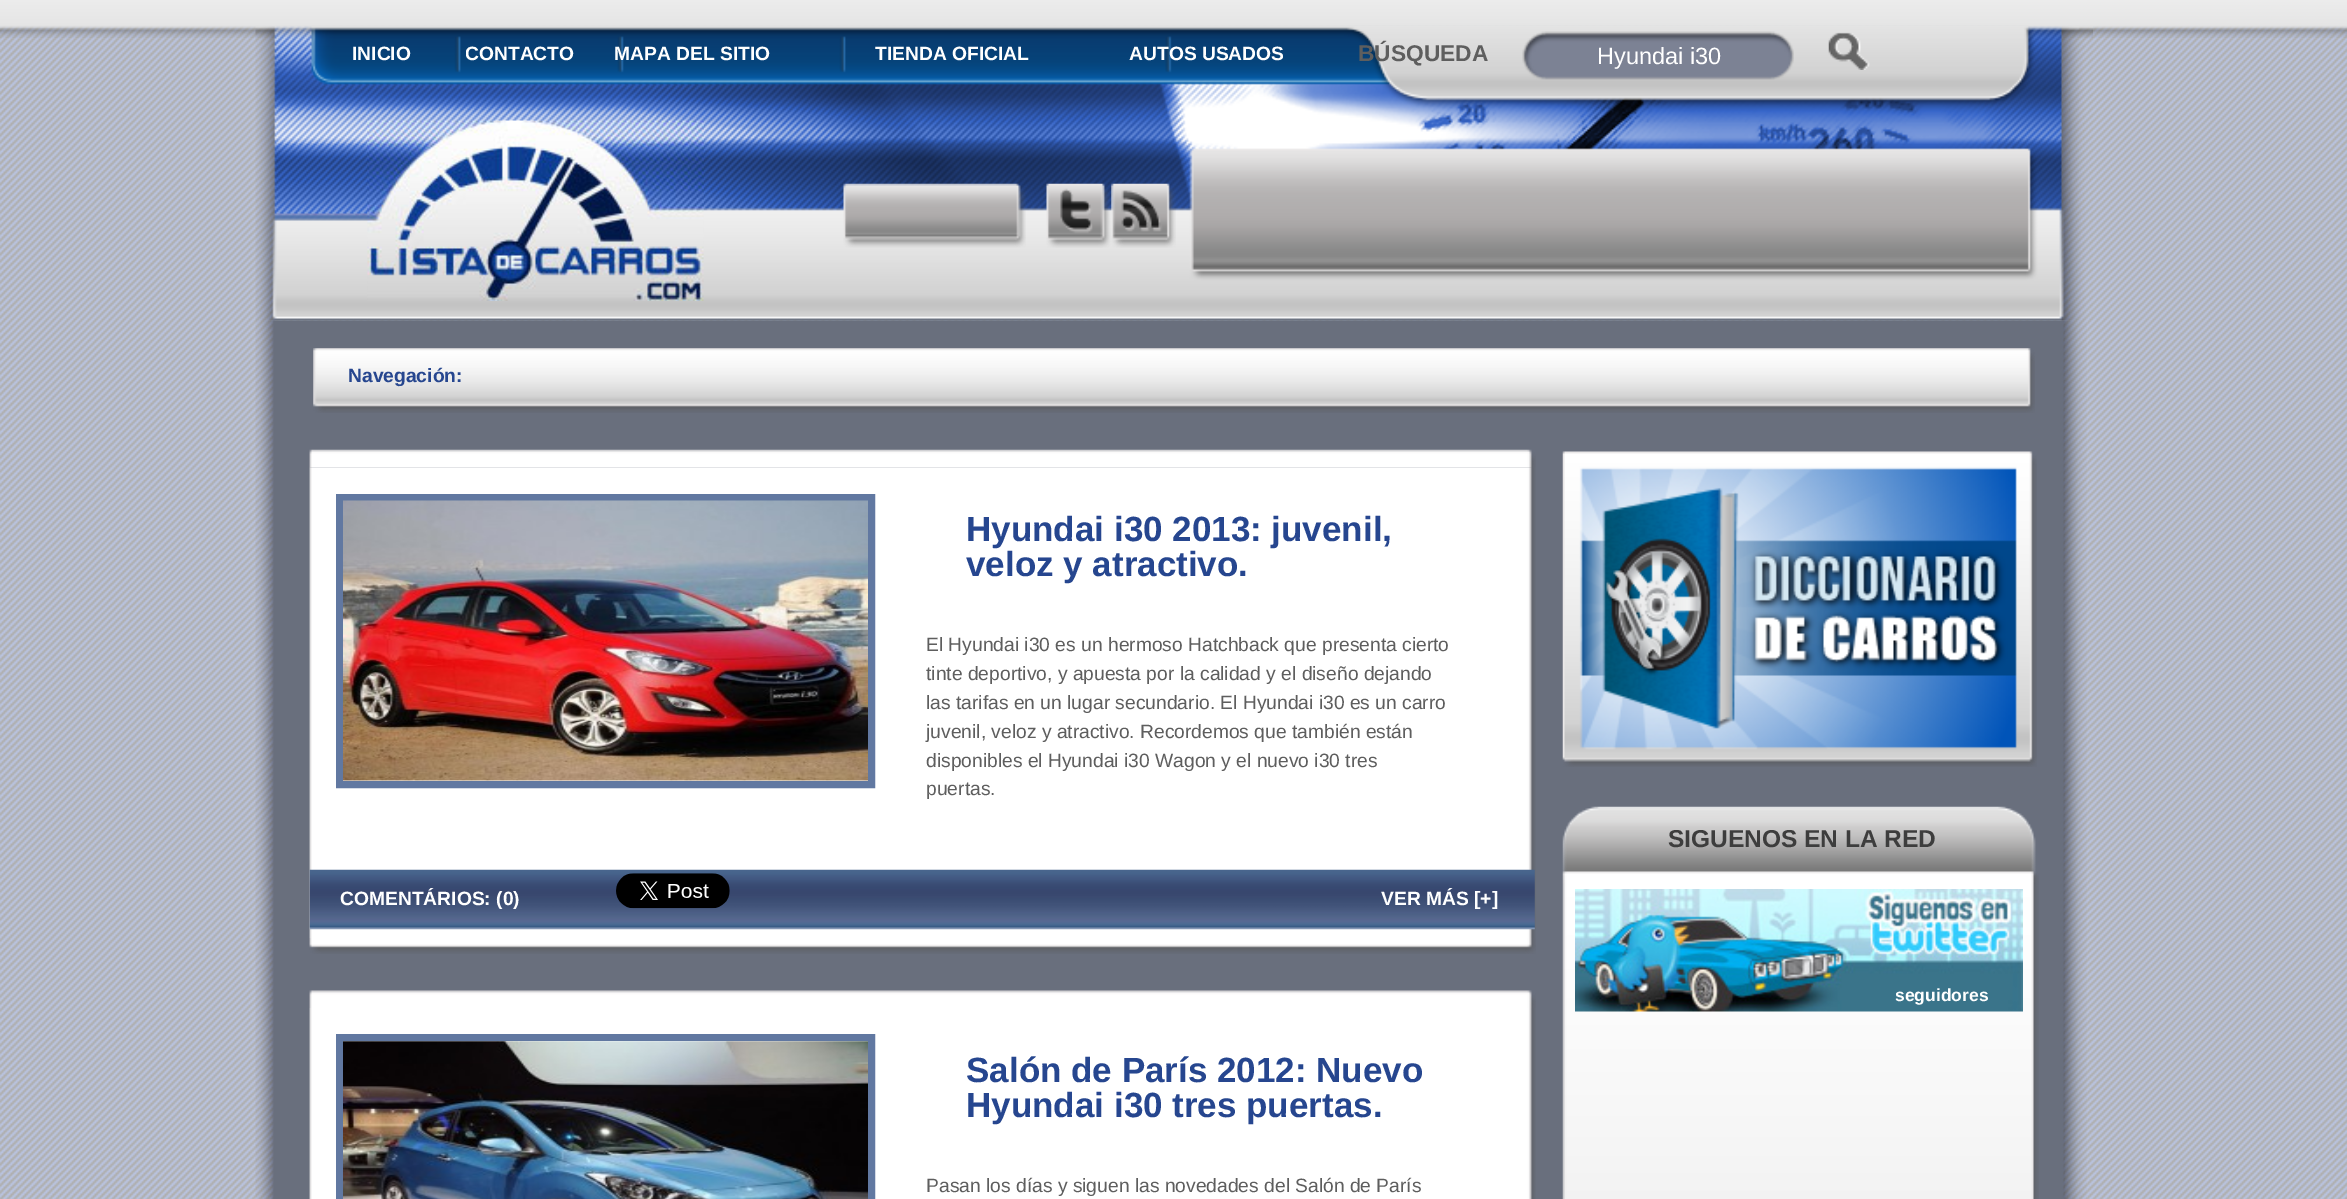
%!PS
<< /PageSize [2347 1199] >> setpagedevice
/gs/gsave load def
/gr/grestore load def
/lw/setlinewidth load def
/co { dup -16 bitshift 255 div exch dup -8 bitshift 255 and 255 div exch 255 and 255 div setrgbcolor } def
/fn { [ exch dup neg 0 0 3 -1 roll 0 0 ] selectfont } def
/tx { co fn moveto show } def
/bx { co rectfill } def
/im { 5 dict begin { /h /w /y /x /name } { exch def } forall
  gsave x y translate w h scale
  w h 8 [w 0 0 h 0 0] name (r) file false 3 colorimage grestore end } def
0 1199 translate 1 -1 scale
4 setmiterlimit
0 0 2347 1199 16#FFFFFF bx
(media/1.raw) 0 25 2347 1174 im
(media/2.raw) 0 0 2347 38 im
(media/10.raw) 255 320 1832 879 im
(media/3.raw) 255 26 1838 295 im
(media/4.raw) 1522 31 272 49 im
(media/5.raw) 1828 32 42 38 im
(media/6.raw) 367 120 337 181 im
(media/7.raw) 843 183 183 65 im
(media/8.raw) 1046 183 65 65 im
(media/9.raw) 1111 183 65 65 im
(media/11.raw) 313 348 1722 65 im
(media/12.raw) 309 449 1227 19 im
(media/13.raw) 309 467 1227 471 im
16#6178A1 co
7 lw
339.5 497.5 532 287 rectstroke
(media/14.raw) 343 500 525 281 im
(media/15.raw) 309 869 1226 61 im
(media/16.raw) 616 873 114 36 im
(media/17.raw) 309 938 1227 16 im
(media/18.raw) 309 990 1227 18 im
(media/19.raw) 309 1008 1227 191 im
339.5 1037.5 532 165 rectstroke
(media/20.raw) 343 1041 525 158 im
(media/21.raw) 1562 451 475 316 im
(media/22.raw) 1562 806 477 393 im
(media/23.raw) 1575 889 448 123 im
(INICIO) 352 60 /LiberationSans-Bold 19.25 16#FFFFFF tx
gs
466 44 108 19 rectclip
(CONTACTO) 465 60 /LiberationSans-Bold 19.25 16#FFFFFF tx
gr
(MAPA DEL SITIO) 614 60 /LiberationSans-Bold 19.25 16#FFFFFF tx
(TIENDA OFICIAL) 875 60 /LiberationSans-Bold 19.25 16#FFFFFF tx
(AUTOS USADOS) 1129 60 /LiberationSans-Bold 19.25 16#FFFFFF tx
(BÚSQUEDA) 1358 61 /LiberationSans-Bold 22.75 16#5E5E5E tx
(Hyundai i30) 1597 64 /LiberationSans-Regular 23.5 16#FFFFFF tx
(Navegación:) 348 382 /LiberationSans-Bold 19.25 16#26468F tx
(Hyundai i30 2013: juvenil,) 966 541 /LiberationSans-Bold 35 16#26468F tx
(veloz y atractivo.) 966 576 /LiberationSans-Bold 35 16#26468F tx
(El Hyundai i30 es un hermoso Hatchback que presenta cierto) 926 651 /LiberationSans-Regular 19.25 16#5E5E5E tx
(tinte deportivo, y apuesta por la calidad y el diseño dejando) 926 680 /LiberationSans-Regular 19.25 16#5E5E5E tx
(las tarifas en un lugar secundario. El Hyundai i30 es un carro) 926 709 /LiberationSans-Regular 19.25 16#5E5E5E tx
(juvenil, veloz y atractivo. Recordemos que también están) 926 738 /LiberationSans-Regular 19.25 16#5E5E5E tx
(disponibles el Hyundai i30 Wagon y el nuevo i30 tres) 926 767 /LiberationSans-Regular 19.25 16#5E5E5E tx
(puertas.) 926 795 /LiberationSans-Regular 19.25 16#5E5E5E tx
(COMENTÁRIOS: \(0\)) 340 905 /LiberationSans-Bold 19.25 16#FFFFFF tx
(VER MÁS [+]) 1381 905 /LiberationSans-Bold 19.25 16#FFFFFF tx
(Salón de París 2012: Nuevo) 966 1082 /LiberationSans-Bold 35 16#26468F tx
(Hyundai i30 tres puertas.) 966 1117 /LiberationSans-Bold 35 16#26468F tx
(Pasan los días y siguen las novedades del Salón de París) 926 1192 /LiberationSans-Regular 19.25 16#5E5E5E tx
(SIGUENOS EN LA RED) 1668 847 /LiberationSans-Bold 24.5 16#3D3D3D tx
(seguidores) 1895 1001 /LiberationSans-Bold 17.5 16#FFFFFF tx
showpage
